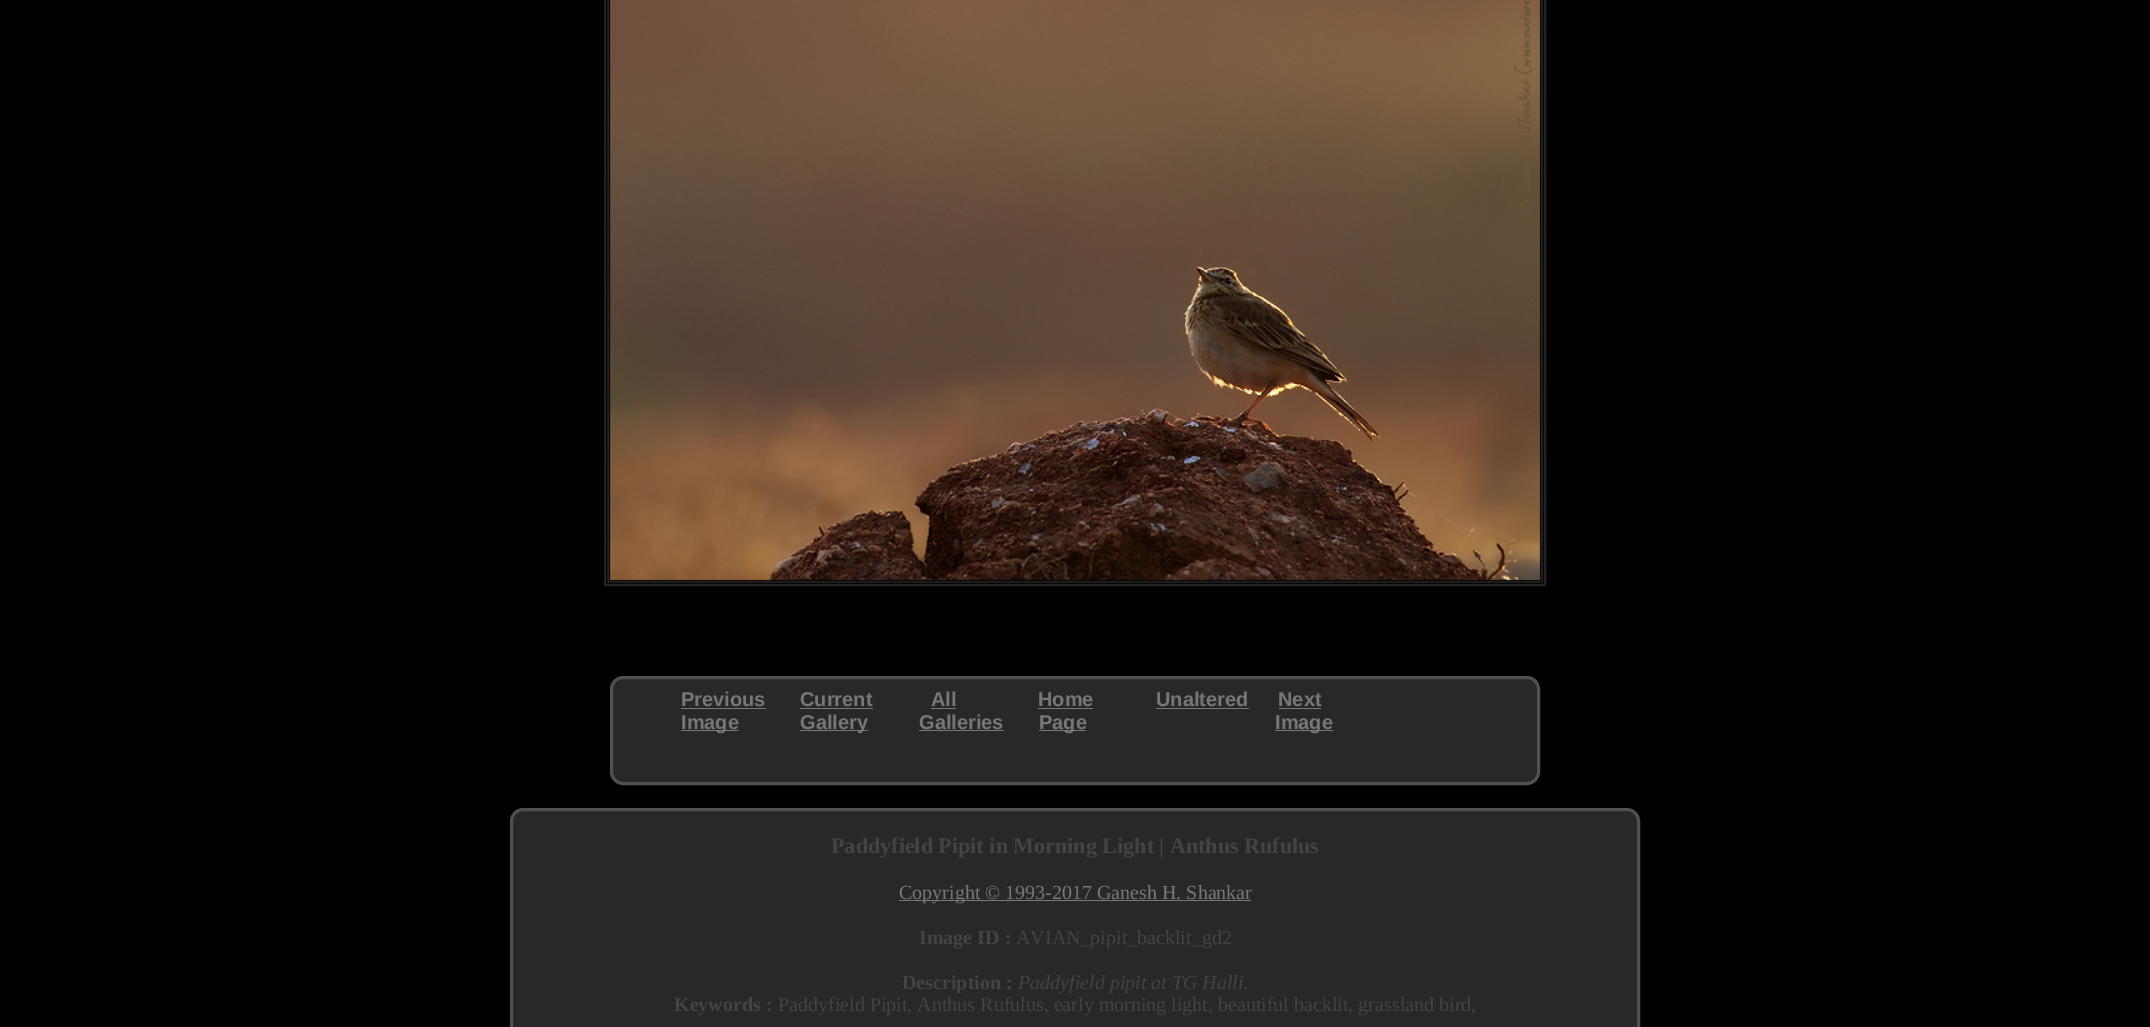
%!PS
<< /PageSize [2150 1027] >> setpagedevice
/fl/fill load def
/st/stroke load def
/gs/gsave load def
/gr/grestore load def
/lw/setlinewidth load def
/co { dup -16 bitshift 255 div exch dup -8 bitshift 255 and 255 div exch 255 and 255 div setrgbcolor } def
/fn { [ exch dup neg 0 0 3 -1 roll 0 0 ] selectfont } def
/tx { co fn moveto show } def
/bx { co rectfill } def
/rr { 5 dict begin { /r /h /w /y /x } { exch def } forall
  x r add y moveto x w add y 2 copy h add r arct x w add y h add x 1 index r arct
  x y h add x y r arct x y 2 copy exch w add exch r arct closepath end } def
/im { 5 dict begin { /h /w /y /x /name } { exch def } forall
  gsave x y translate w h scale
  w h 8 [w 0 0 h 0 0] name (r) file false 3 colorimage grestore end } def
0 1027 translate 1 -1 scale
4 setmiterlimit
0 0 2150 1027 16#000000 bx
16#222222 co
3 lw
605.5 -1.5 939 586 rectstroke
(media/1.raw) 606 0 938 584 im
16#282828 co
611.5 677.5 927 106 11.5 rr gs fl gr
16#505050 co
st
681 708 85 1 16#777777 bx
681 730 58 1 16#777777 bx
800 708 73 1 16#777777 bx
800 730 68 1 16#777777 bx
931 708 25 1 16#777777 bx
919 730 85 1 16#777777 bx
1038 708 55 1 16#777777 bx
1039 730 47 1 16#777777 bx
1156 708 93 1 16#777777 bx
1279 708 42 1 16#777777 bx
1275 730 58 1 16#777777 bx
16#282828 co
511.5 809.5 1127 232 11.5 rr gs fl gr
16#505050 co
st
899 900 352 1 16#777777 bx
(Previous) 681 706 /LiberationSans-Bold 20 16#777777 tx
(Image) 681 729 /LiberationSans-Bold 20 16#777777 tx
(Current) 800 706 /LiberationSans-Bold 20 16#777777 tx
(Gallery) 800 729 /LiberationSans-Bold 20 16#777777 tx
(All) 931 706 /LiberationSans-Bold 20 16#777777 tx
(Galleries) 919 729 /LiberationSans-Bold 20 16#777777 tx
(Home) 1038 706 /LiberationSans-Bold 20 16#777777 tx
(Page) 1039 729 /LiberationSans-Bold 20 16#777777 tx
(Unaltered) 1156 706 /LiberationSans-Bold 20 16#777777 tx
(Next) 1278 706 /LiberationSans-Bold 20 16#777777 tx
(Image) 1275 729 /LiberationSans-Bold 20 16#777777 tx
(Paddyfield Pipit in Morning Light | Anthus Rufulus) 831 853 /LiberationSerif-Bold 22.1 16#444444 tx
(Copyright © 1993-2017 Ganesh H. Shankar) 899 899 /LiberationSerif-Regular 20 16#777777 tx
(Image ID :) 919 944 /LiberationSerif-Bold 20 16#444444 tx
(AVIAN_pipit_backlit_gd2) 1016 944 /LiberationSerif-Regular 20 16#444444 tx
(Description :) 902 989 /LiberationSerif-Bold 20 16#444444 tx
(Paddyfield pipit at TG Halli.) 1018 989 /LiberationSerif-Italic 20 16#444444 tx
(Keywords :) 674 1011 /LiberationSerif-Bold 20 16#444444 tx
(Paddyfield Pipit, Anthus Rufulus, early morning light, beautiful backlit, grassland bird,) 778 1011 /LiberationSerif-Regular 20 16#444444 tx
showpage
